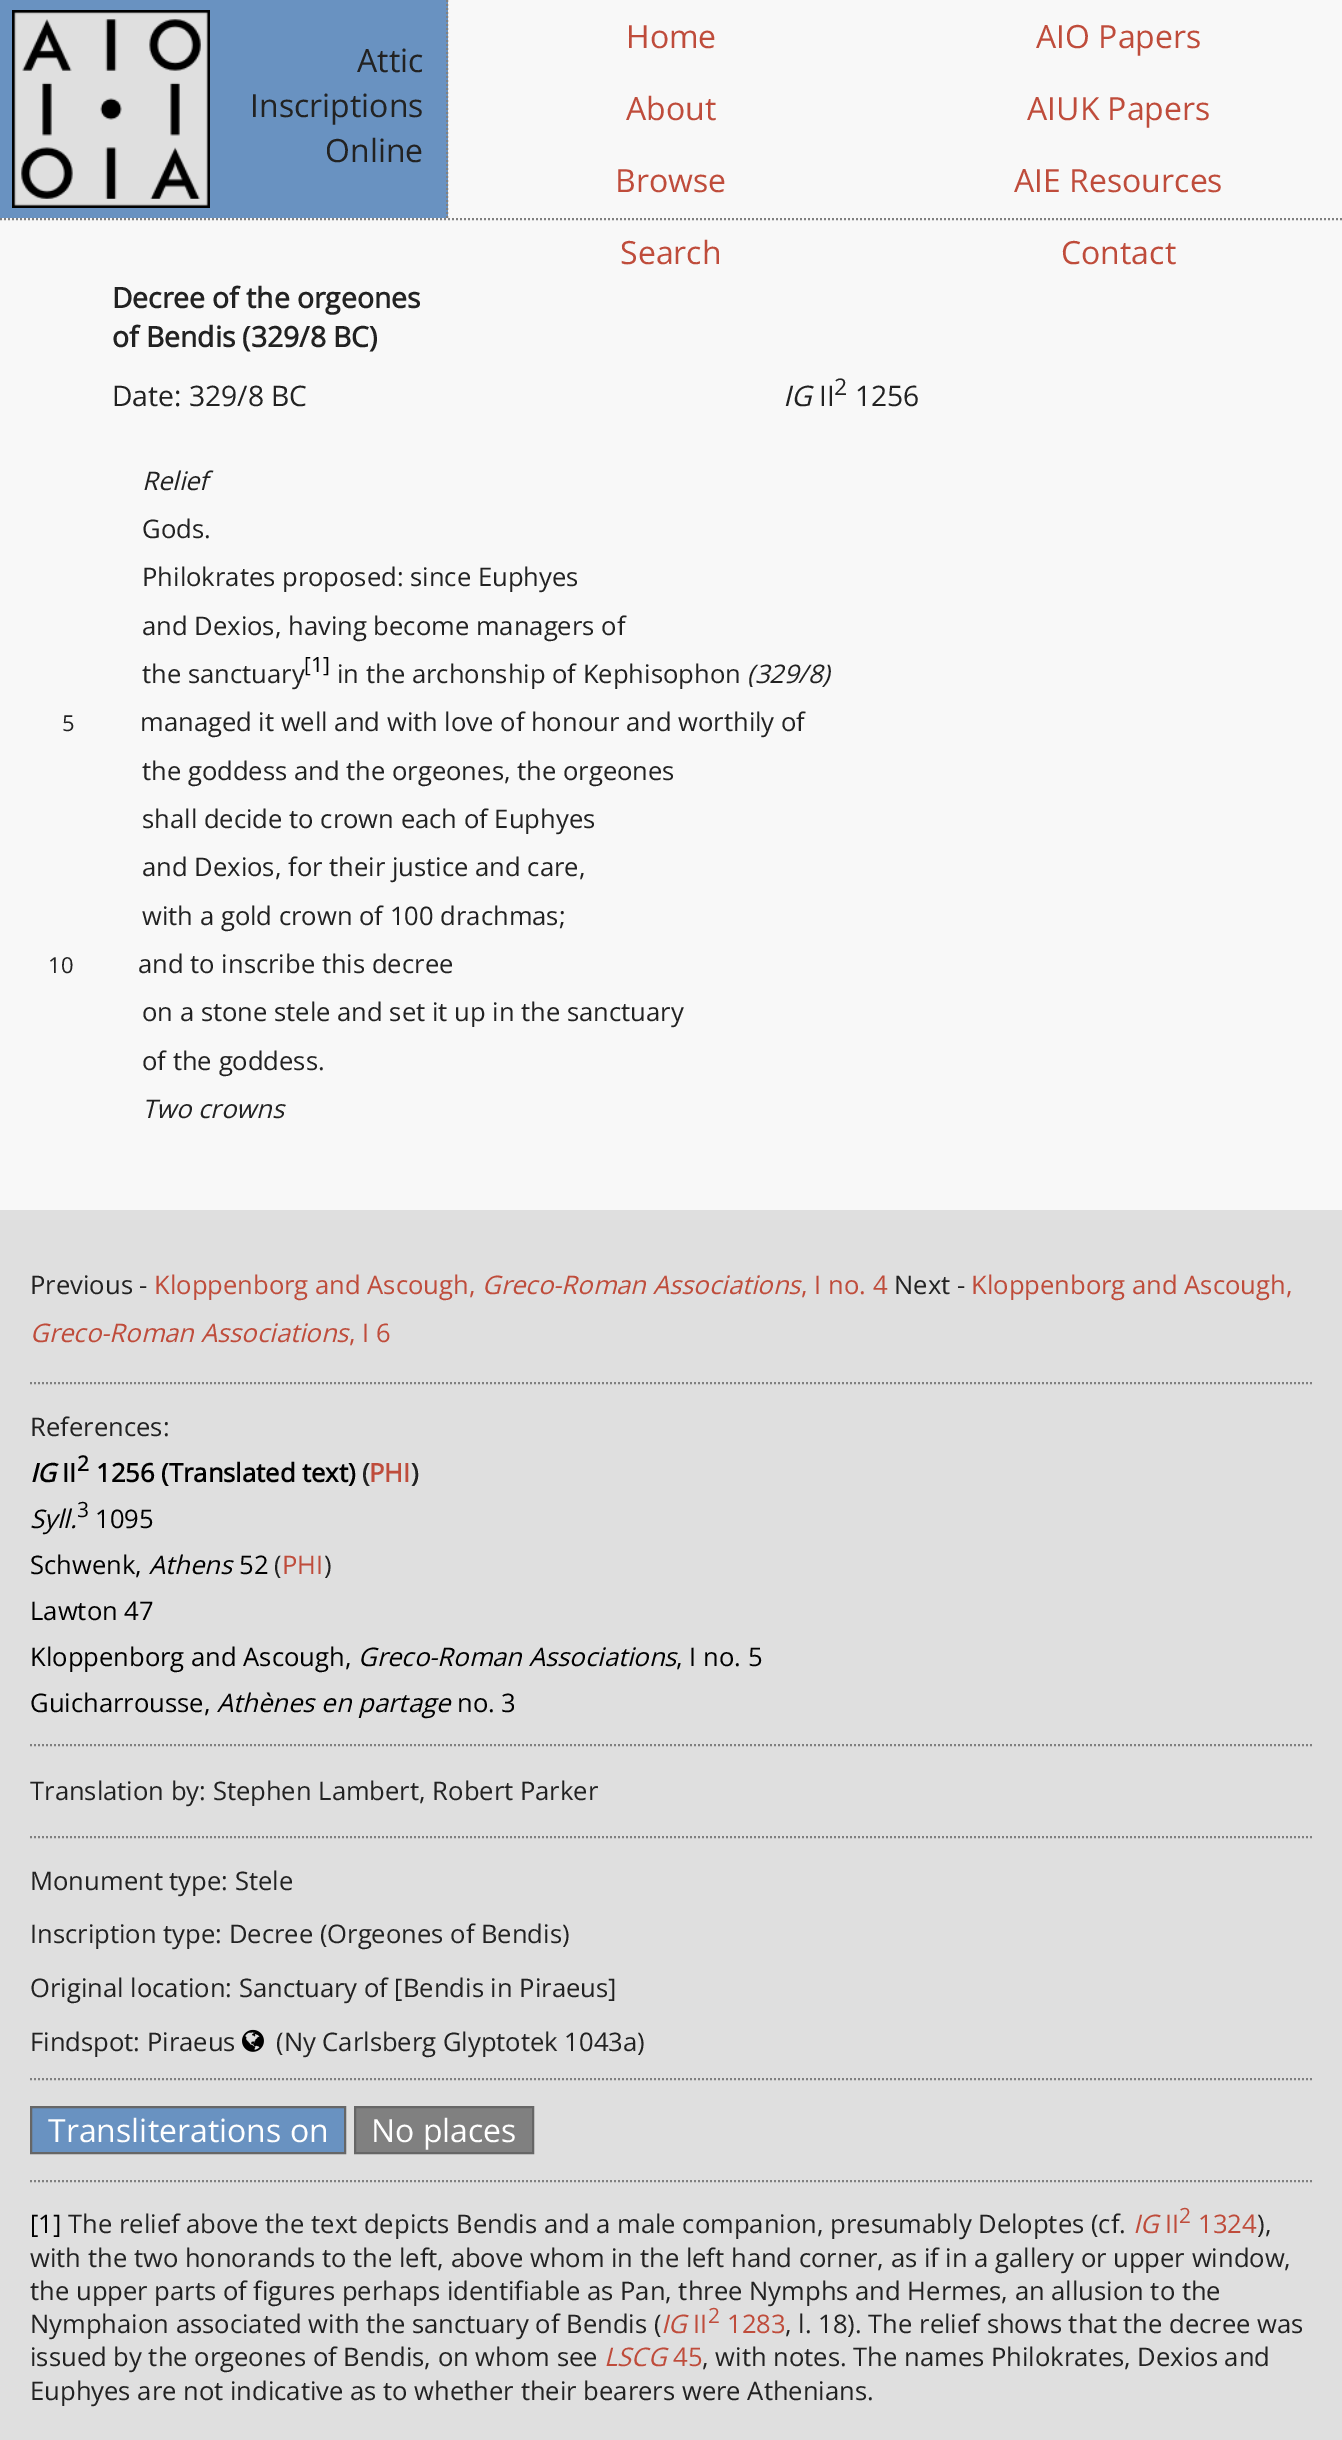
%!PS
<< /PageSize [1342 2440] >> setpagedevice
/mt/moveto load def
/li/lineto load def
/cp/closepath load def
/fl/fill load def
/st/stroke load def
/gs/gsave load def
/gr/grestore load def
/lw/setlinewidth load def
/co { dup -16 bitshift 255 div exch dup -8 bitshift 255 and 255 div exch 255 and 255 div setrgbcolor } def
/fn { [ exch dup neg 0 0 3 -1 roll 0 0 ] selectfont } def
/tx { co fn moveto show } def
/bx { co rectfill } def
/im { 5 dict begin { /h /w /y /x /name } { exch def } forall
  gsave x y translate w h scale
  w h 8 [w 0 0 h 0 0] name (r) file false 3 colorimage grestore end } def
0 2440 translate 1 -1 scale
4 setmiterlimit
0 0 1342 2440 16#F8F8F8 bx
16#808080 co
2 lw
[2 2] 0 setdash
0 219 mt 1342 219 li st
0 0 448 218 16#6992C1 bx
16#808080 co
447 0 mt 447 218 li st
(media/1.raw) 12 10 198 198 im
0 1210 1342 1230 16#DFDFDF bx
16#808080 co
30 1383 mt 1312 1383 li st
30 1745 mt 1312 1745 li st
30 1837 mt 1312 1837 li st
30 2079 mt 1312 2079 li st
(media/2.raw) 242 2029 22 23 im
30 2181 mt 1312 2181 li st
16#6992C1 co
31 2107 mt 345 2107 li 345 2153 li 31 2153 li cp gs fl gr
16#666666 co
[] 0 setdash
st
16#808080 co
355 2107 mt 533 2107 li 533 2153 li 355 2153 li cp gs fl gr
16#666666 co
st
(Attic) 357 72 /OpenSans-Regular 32 16#222222 tx
(Inscriptions) 250 117 /OpenSans-Regular 32 16#222222 tx
(Online) 325 162 /OpenSans-Regular 32 16#222222 tx
(Home) 626 48 /OpenSans-Regular 32 16#BF4C3B tx
(AIO Papers) 1036 48 /OpenSans-Regular 32 16#BF4C3B tx
(About) 626 120 /OpenSans-Regular 32 16#BF4C3B tx
(AIUK Papers) 1027 120 /OpenSans-Regular 32 16#BF4C3B tx
(Browse) 615 192 /OpenSans-Regular 32 16#BF4C3B tx
(AIE Resources) 1014 192 /OpenSans-Regular 32 16#BF4C3B tx
(Search) 620 264 /OpenSans-Regular 32 16#BF4C3B tx
(Contact) 1061 264 /OpenSans-Regular 32 16#BF4C3B tx
(Decree of the orgeones) 112 308 /OpenSans-Bold 28.25 16#222222 tx
(of Bendis \(329/8 BC\)) 112 347 /OpenSans-Bold 28.25 16#222222 tx
(Date: 329/8 BC) 112 406 /OpenSans-Regular 28.25 16#222222 tx
(IG) 783 406 /OpenSans-Italic 28.25 16#222222 tx
(II) 819 406 /OpenSans-Regular 28.25 16#222222 tx
(2) 834 395 /OpenSans-Regular 23 16#222222 tx
(1256) 855 406 /OpenSans-Regular 28.25 16#222222 tx
(Relief) 142 490 /OpenSans-Italic 25.6 16#222222 tx
(Gods.) 142 538 /OpenSans-Regular 25.6 16#222222 tx
(Philokrates proposed: since Euphyes) 142 586 /OpenSans-Regular 25.6 16#222222 tx
(and Dexios, having become managers of) 142 635 /OpenSans-Regular 25.6 16#222222 tx
(the sanctuary) 142 683 /OpenSans-Regular 25.6 16#222222 tx
([1]) 304 672 /OpenSans-Regular 21 16#000000 tx
(in the archonship of Kephisophon) 337 683 /OpenSans-Regular 25.6 16#222222 tx
(\(329/8\)) 747 683 /OpenSans-Italic 25.6 16#222222 tx
(5) 62 731 /OpenSans-Regular 22 16#222222 tx
(managed it well and with love of honour and worthily of) 140 731 /OpenSans-Regular 25.6 16#222222 tx
(the goddess and the orgeones, the orgeones) 142 780 /OpenSans-Regular 25.6 16#222222 tx
(shall decide to crown each of Euphyes) 142 828 /OpenSans-Regular 25.6 16#222222 tx
(and Dexios, for their justice and care,) 142 876 /OpenSans-Regular 25.6 16#222222 tx
(with a gold crown of 100 drachmas;) 142 925 /OpenSans-Regular 25.6 16#222222 tx
(10) 48 973 /OpenSans-Regular 22 16#222222 tx
(and to inscribe this decree) 138 973 /OpenSans-Regular 25.6 16#222222 tx
(on a stone stele and set it up in the sanctuary) 142 1021 /OpenSans-Regular 25.6 16#222222 tx
(of the goddess.) 142 1070 /OpenSans-Regular 25.6 16#222222 tx
(Two crowns) 142 1118 /OpenSans-Italic 25.6 16#222222 tx
(Previous -) 30 1294 /OpenSans-Regular 25.6 16#222222 tx
(Kloppenborg and Ascough,) 154 1294 /OpenSans-Regular 25.6 16#BF4C3B tx
(Greco-Roman Associations) 482 1294 /OpenSans-Italic 25.6 16#BF4C3B tx
(, I no. 4) 801 1294 /OpenSans-Regular 25.6 16#BF4C3B tx
(Next -) 894 1294 /OpenSans-Regular 25.6 16#222222 tx
(Kloppenborg and Ascough,) 971 1294 /OpenSans-Regular 25.6 16#BF4C3B tx
(Greco-Roman Associations) 30 1342 /OpenSans-Italic 25.6 16#BF4C3B tx
(, I 6) 349 1342 /OpenSans-Regular 25.6 16#BF4C3B tx
(References:) 30 1436 /OpenSans-Regular 25.6 16#222222 tx
(IG) 30 1482 /OpenSans-BoldItalic 25.6 16#000000 tx
(II) 62 1482 /OpenSans-Bold 25.6 16#000000 tx
(2) 77 1471 /OpenSans-Bold 21 16#000000 tx
(1256 \(Translated text\)) 96 1482 /OpenSans-Bold 25.6 16#000000 tx
(\() 362 1482 /OpenSans-Bold 25.6 16#222222 tx
(PHI) 369 1482 /OpenSans-Bold 25.6 16#BF4C3B tx
(\)) 411 1482 /OpenSans-Bold 25.6 16#222222 tx
(Syll.) 30 1528 /OpenSans-Italic 25.6 16#000000 tx
(3) 77 1517 /OpenSans-Regular 21 16#000000 tx
(1095) 95 1528 /OpenSans-Regular 25.6 16#000000 tx
(Schwenk,) 30 1574 /OpenSans-Regular 25.6 16#000000 tx
(Athens) 149 1574 /OpenSans-Italic 25.6 16#000000 tx
(52) 239 1574 /OpenSans-Regular 25.6 16#000000 tx
(\() 274 1574 /OpenSans-Regular 25.6 16#222222 tx
(PHI) 282 1574 /OpenSans-Regular 25.6 16#BF4C3B tx
(\)) 324 1574 /OpenSans-Regular 25.6 16#222222 tx
(Lawton 47) 30 1620 /OpenSans-Regular 25.6 16#000000 tx
(Kloppenborg and Ascough,) 30 1666 /OpenSans-Regular 25.6 16#000000 tx
(Greco-Roman Associations) 358 1666 /OpenSans-Italic 25.6 16#000000 tx
(, I no. 5) 676 1666 /OpenSans-Regular 25.6 16#000000 tx
(Guicharrousse,) 30 1712 /OpenSans-Regular 25.6 16#000000 tx
(Athènes en partage) 217 1712 /OpenSans-Italic 25.6 16#000000 tx
(no. 3) 457 1712 /OpenSans-Regular 25.6 16#000000 tx
(Translation by: Stephen Lambert, Robert Parker) 30 1800 /OpenSans-Regular 25.6 16#222222 tx
(Monument type: Stele) 30 1890 /OpenSans-Regular 25.6 16#222222 tx
(Inscription type: Decree \(Orgeones of Bendis\)) 30 1943 /OpenSans-Regular 25.6 16#222222 tx
(Original location: Sanctuary of [Bendis in Piraeus]) 30 1997 /OpenSans-Regular 25.6 16#222222 tx
(Findspot: Piraeus) 30 2051 /OpenSans-Regular 25.6 16#222222 tx
(\(Ny Carlsberg Glyptotek 1043a\)) 276 2051 /OpenSans-Regular 25.6 16#222222 tx
(Transliterations on) 48 2142 /OpenSans-Regular 32 16#FFFFFF tx
(No places) 371 2142 /OpenSans-Regular 32 16#FFFFFF tx
([1]) 30 2233 /OpenSans-Regular 25.6 16#000000 tx
(The relief above the text depicts Bendis and a male companion, presumably Deloptes \(cf.) 68 2233 /OpenSans-Regular 25.6 16#222222 tx
(IG) 1133 2233 /OpenSans-Italic 25.6 16#BF4C3B tx
(II) 1165 2233 /OpenSans-Regular 25.6 16#BF4C3B tx
(2) 1179 2223 /OpenSans-Regular 21 16#BF4C3B tx
(1324) 1198 2233 /OpenSans-Regular 25.6 16#BF4C3B tx
(\),) 1257 2233 /OpenSans-Regular 25.6 16#222222 tx
(with the two honorands to the left, above whom in the left hand corner, as if in a gallery or upper window,) 30 2267 /OpenSans-Regular 25.6 16#222222 tx
(the upper parts of figures perhaps identifiable as Pan, three Nymphs and Hermes, an allusion to the) 30 2300 /OpenSans-Regular 25.6 16#222222 tx
(Nymphaion associated with the sanctuary of Bendis \() 30 2333 /OpenSans-Regular 25.6 16#222222 tx
(IG) 661 2333 /OpenSans-Italic 25.6 16#BF4C3B tx
(II) 693 2333 /OpenSans-Regular 25.6 16#BF4C3B tx
(2) 708 2323 /OpenSans-Regular 21 16#BF4C3B tx
(1283) 727 2333 /OpenSans-Regular 25.6 16#BF4C3B tx
(, l. 18\). The relief shows that the decree was) 785 2333 /OpenSans-Regular 25.6 16#222222 tx
(issued by the orgeones of Bendis, on whom see) 30 2366 /OpenSans-Regular 25.6 16#222222 tx
(LSCG) 604 2366 /OpenSans-Italic 25.6 16#BF4C3B tx
(45) 673 2366 /OpenSans-Regular 25.6 16#BF4C3B tx
(, with notes. The names Philokrates, Dexios and) 702 2366 /OpenSans-Regular 25.6 16#222222 tx
(Euphyes are not indicative as to whether their bearers were Athenians.) 30 2400 /OpenSans-Regular 25.6 16#222222 tx
showpage
